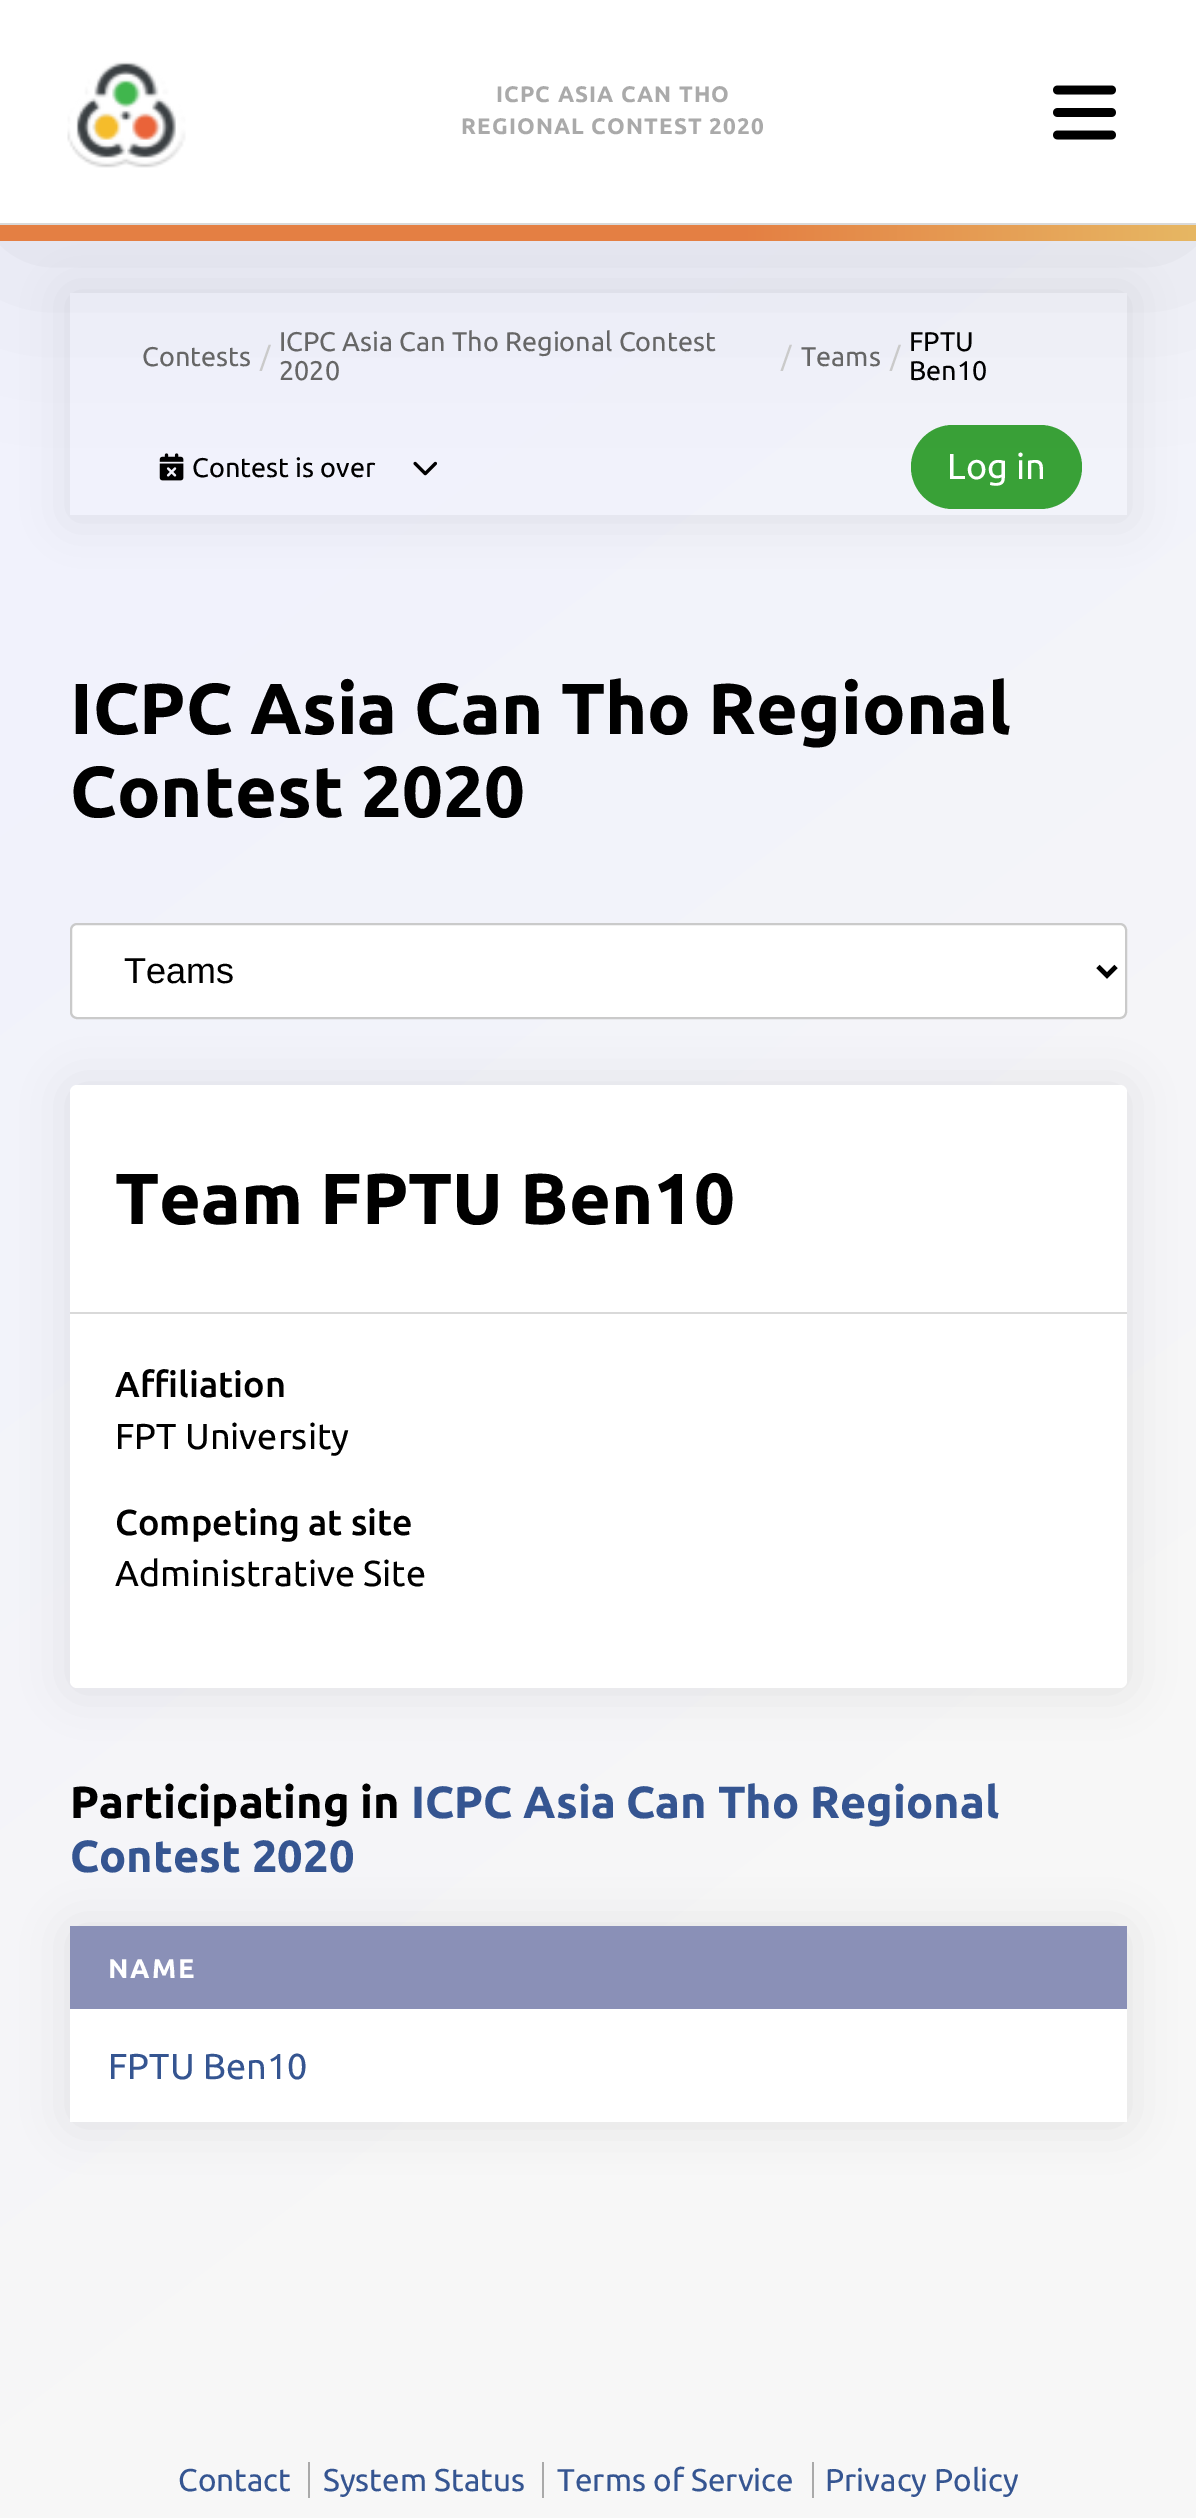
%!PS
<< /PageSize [1196 2518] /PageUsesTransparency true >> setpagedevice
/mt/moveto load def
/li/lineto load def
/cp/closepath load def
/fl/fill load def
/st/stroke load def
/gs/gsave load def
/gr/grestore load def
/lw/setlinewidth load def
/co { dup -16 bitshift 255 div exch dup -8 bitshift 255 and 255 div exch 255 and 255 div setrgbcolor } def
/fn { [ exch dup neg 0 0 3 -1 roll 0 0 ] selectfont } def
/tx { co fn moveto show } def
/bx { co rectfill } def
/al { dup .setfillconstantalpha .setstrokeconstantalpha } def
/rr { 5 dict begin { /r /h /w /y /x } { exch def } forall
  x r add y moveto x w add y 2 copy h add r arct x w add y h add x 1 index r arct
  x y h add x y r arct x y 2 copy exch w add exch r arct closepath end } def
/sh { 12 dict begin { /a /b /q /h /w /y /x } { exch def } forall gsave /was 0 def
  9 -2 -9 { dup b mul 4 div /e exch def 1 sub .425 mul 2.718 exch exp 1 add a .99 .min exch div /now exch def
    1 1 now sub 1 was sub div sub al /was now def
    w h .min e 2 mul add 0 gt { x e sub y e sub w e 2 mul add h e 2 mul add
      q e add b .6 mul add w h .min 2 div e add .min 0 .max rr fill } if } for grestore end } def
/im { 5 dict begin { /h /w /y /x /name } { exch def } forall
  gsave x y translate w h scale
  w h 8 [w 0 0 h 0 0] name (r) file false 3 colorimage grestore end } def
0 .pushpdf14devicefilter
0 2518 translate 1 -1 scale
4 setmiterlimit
0 0 1196 2518 16#FFFFFF bx
gs 0 241 mt 1196 241 li 1196 2518 li 0 2518 li cp clip newpath
<< /ShadingType 2 /ColorSpace /DeviceRGB /Coords [-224 169 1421 2351] /Extend [true true] /Function << /FunctionType 3 /Domain [0 1] /Functions [<< /FunctionType 2 /Domain [0 1] /C0 [.945 .949 .988] /C1 [.945 .949 .988] /N 1 >> << /FunctionType 2 /Domain [0 1] /C0 [.945 .949 .988] /C1 [.969 .969 .969] /N 1 >> << /FunctionType 2 /Domain [0 1] /C0 [.969 .969 .969] /C1 [.969 .969 .969] /N 1 >>] /Bounds [.22 .75] /Encode [0 1 0 1 0 1] >> >> shfill gr
gs
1 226 mt 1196 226 li 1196 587 li 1 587 li cp 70 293 mt 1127 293 li 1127 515 li 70 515 li cp eoclip newpath
16#000000 co
70 295 1057 223 0 22.5 .08 sh
gr
(media/3.raw) 159 453 25 28 im
(media/4.raw) 413 461 24 15 im
16#39A137 co
911 425 171 84 42 rr fl
16#000000 co
0 5 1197 240 0 90 .09 sh
0 0 1196 223 16#FFFFFF bx
0 223 1196 2 16#D9D9D9 bx
(media/1.raw) 67 61 119 107 im
(media/2.raw) 1053 85 63 55 im
gs 0 225 mt 1196 225 li 1196 241 li 0 241 li cp clip newpath
<< /ShadingType 2 /ColorSpace /DeviceRGB /Coords [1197 233 0 233] /Extend [true true] /Function << /FunctionType 3 /Domain [0 1] /Functions [<< /FunctionType 2 /Domain [0 1] /C0 [.906 .718 .388] /C1 [.894 .498 .263] /N 1 >> << /FunctionType 2 /Domain [0 1] /C0 [.894 .498 .263] /C1 [.894 .498 .263] /N 1 >>] /Bounds [.38] /Encode [0 1 0 1] >> >> shfill gr
16#000000 co
70 1087 1057 603 7 22.5 .08 sh
16#FFFFFF co
71 924 1055 94 6 rr gs fl gr
16#CACACA co
2 lw
st
16#000000 co
4.5 lw
1098 966.5 mt 1107 975.5 li 1116 966.5 li st
16#FFFFFF co
70 1085 1057 603 7 rr fl
70 1312 1057 2 16#D9D9D9 bx
16#000000 co
70 1928 1057 196 7 22.5 .08 sh
70 1926 1057 83 16#8A90B7 bx
70 2009 1057 113 16#FFFFFF bx
308 2462 2 36 16#AAAAAA bx
542 2462 2 36 16#AAAAAA bx
812 2462 2 36 16#AAAAAA bx
/Ubuntu-Bold 22.5 fn
496 102 mt 1.1 0 (ICPC ASIA CAN THO) ashow
461 134 mt 1.1 0 (REGIONAL CONTEST 2020) ashow
(Contests) 142 366 /Ubuntu-Regular 27 16#666666 tx
(/) 260 366 /Ubuntu-Regular 27 16#CACACA tx
(ICPC Asia Can Tho Regional Contest) 279 351 /Ubuntu-Regular 27 16#666666 tx
(2020) 279 380 /Ubuntu-Regular 27 16#666666 tx
(/) 781 366 /Ubuntu-Regular 27 16#CACACA tx
(Teams) 801 366 /Ubuntu-Regular 27 16#666666 tx
(/) 890 366 /Ubuntu-Regular 27 16#CACACA tx
(FPTU) 909 351 /Ubuntu-Regular 27 16#000000 tx
(Ben10) 909 380 /Ubuntu-Regular 27 16#000000 tx
(Contest is over) 192 477 /Ubuntu-Regular 27 16#000000 tx
(Log in) 947 479 /Ubuntu-Regular 36 16#FFFFFF tx
(ICPC Asia Can Tho Regional) 70 734 /Ubuntu-Bold 72 16#000000 tx
(Contest 2020) 70 817 /Ubuntu-Bold 72 16#000000 tx
(Teams) 124 983 /LiberationSans-Regular 36 16#000000 tx
(Team FPTU Ben10) 115 1224 /Ubuntu-Bold 72 16#000000 tx
(Affiliation) 115 1397 /Ubuntu-Medium 36 16#000000 tx
(FPT University) 115 1449 /Ubuntu-Regular 36 16#000000 tx
(Competing at site) 115 1535 /Ubuntu-Medium 36 16#000000 tx
(Administrative Site) 115 1586 /Ubuntu-Regular 36 16#000000 tx
(Participating in) 70 1818 /Ubuntu-Bold 45 16#000000 tx
(ICPC Asia Can Tho Regional) 411 1818 /Ubuntu-Bold 45 16#355591 tx
(Contest 2020) 70 1872 /Ubuntu-Bold 45 16#355591 tx
/Ubuntu-Bold 27 fn
16#FFFFFF co
108 1978 mt 2 0 (NAME) ashow
(FPTU Ben10) 108 2079 /Ubuntu-Regular 36 16#355591 tx
(Contact) 178 2491 /Ubuntu-Regular 31.5 16#355591 tx
(System Status) 323 2491 /Ubuntu-Regular 31.5 16#355591 tx
(Terms of Service) 557 2491 /Ubuntu-Regular 31.5 16#355591 tx
(Privacy Policy) 825 2491 /Ubuntu-Regular 31.5 16#355591 tx
.poppdf14devicefilter showpage
